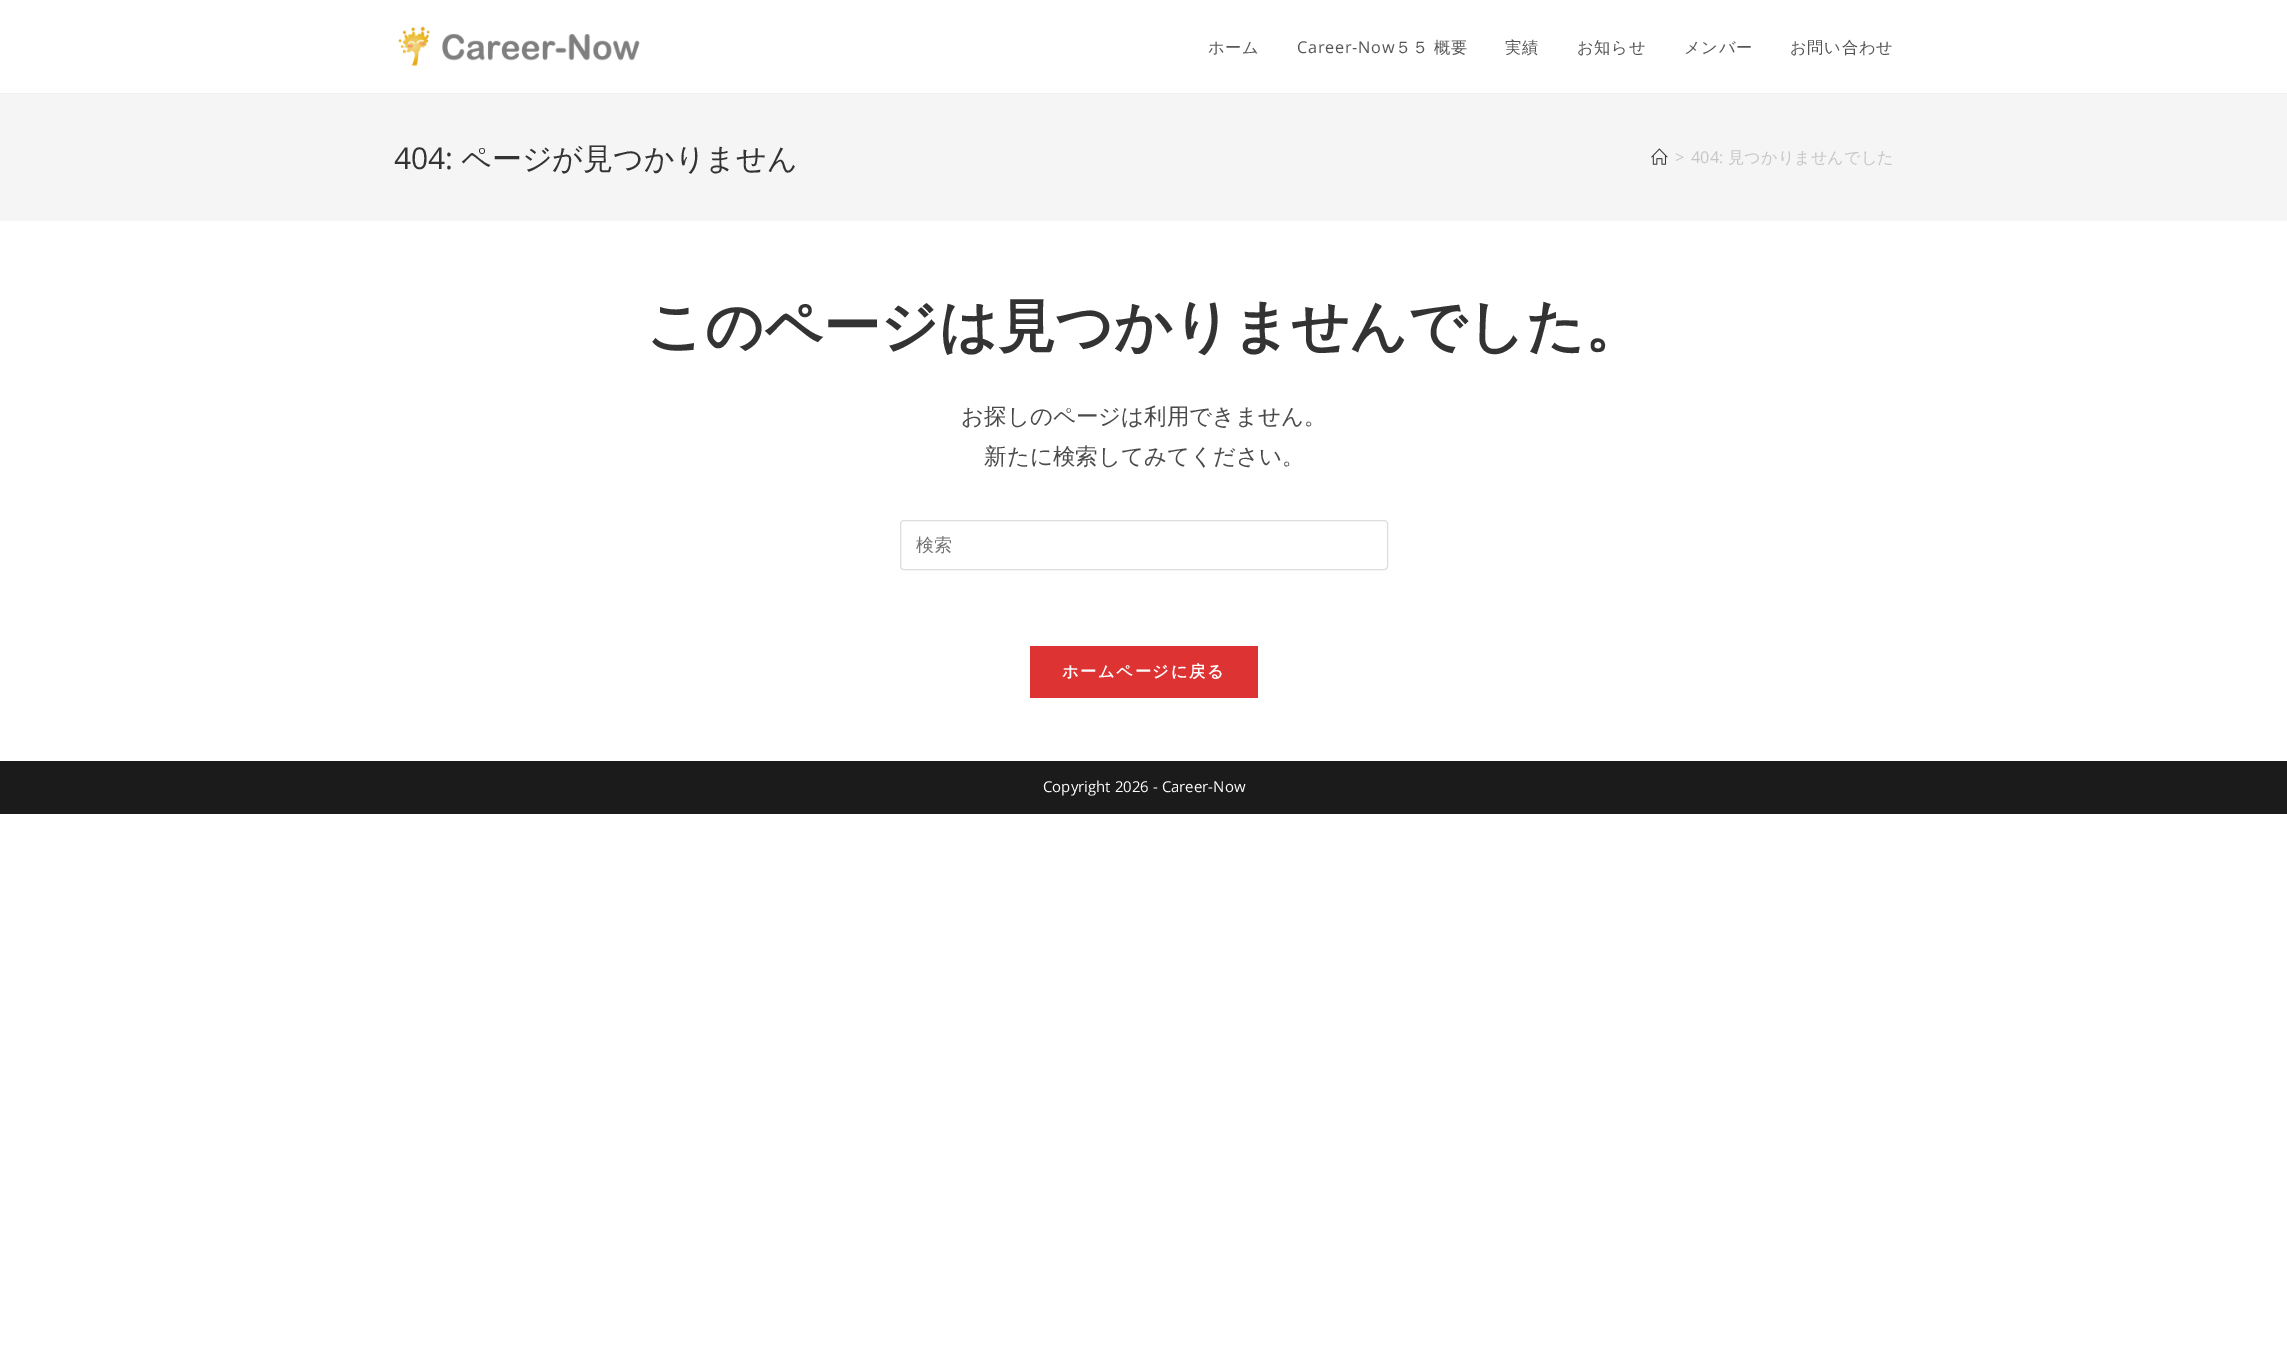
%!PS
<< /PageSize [2287 1347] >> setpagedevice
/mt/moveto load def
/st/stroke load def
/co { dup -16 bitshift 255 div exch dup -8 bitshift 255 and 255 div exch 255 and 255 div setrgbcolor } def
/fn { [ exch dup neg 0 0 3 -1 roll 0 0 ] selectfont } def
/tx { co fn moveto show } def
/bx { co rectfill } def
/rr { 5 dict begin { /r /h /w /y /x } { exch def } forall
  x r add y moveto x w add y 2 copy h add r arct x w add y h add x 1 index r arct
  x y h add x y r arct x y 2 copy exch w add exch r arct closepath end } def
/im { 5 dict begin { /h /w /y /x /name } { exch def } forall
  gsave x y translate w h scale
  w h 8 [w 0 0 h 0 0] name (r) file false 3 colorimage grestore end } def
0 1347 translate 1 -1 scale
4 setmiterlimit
0 0 2287 1347 16#FFFFFF bx
0 93 2287 1 16#F1F1F1 bx
(media/1.raw) 398 26 242 41 im
0 94 2287 127 16#F5F5F5 bx
(media/2.raw) 1651 148 17 17 im
16#DDDDDD co
900.5 520.5 487 49 3.5 rr st
1030 646 228 52 16#DD3333 bx
0 761 2287 53 16#1B1B1B bx
/WenQuanYiZenHei-Medium 16.25 fn
16#555555 co
1208 53 mt .75 0 (ホーム) ashow
/OpenSans-Regular 16.25 fn
1297 53 mt .75 0 (Career-Now) ashow
/WenQuanYiZenHei-Medium 16.25 fn
1395 53 mt -1 0 32 .75 0 (５５ 概要) awidthshow
1505 53 mt .75 0 (実績) ashow
1577 53 mt .75 0 (お知らせ) ashow
1684 53 mt .75 0 (メンバー) ashow
1790 53 mt .75 0 (お問い合わせ) ashow
(404:) 394 169 /OpenSans-Regular 30 16#333333 tx
(ページが見つかりません) 461 169 /WenQuanYiZenHei-Medium 30 16#333333 tx
(>) 1675 163 /OpenSans-Regular 16.25 16#C6C6C6 tx
(404:) 1691 163 /OpenSans-Regular 16.25 16#C6C6C6 tx
(見つかりませんでした) 1728 163 /WenQuanYiZenHei-Medium 16.25 16#C6C6C6 tx
(このページは見つかりませんでした。) 646 346 /WenQuanYiZenHei-Bold 57.5 16#333333 tx
(お探しのページは利用できません。) 961 424 /WenQuanYiZenHei-Medium 22.5 16#4A4A4A tx
(新たに検索してみてください。) 984 464 /WenQuanYiZenHei-Medium 22.5 16#4A4A4A tx
(検索) 916 551 /WenQuanYiZenHei-Medium 18 16#757575 tx
/WenQuanYiZenHei-Bold 16.25 fn
16#FFFFFF co
1062 677 mt 1.6 0 (ホームページに戻る) ashow
(Copyright 2026 - Career-Now) 1043 792 /OpenSans-Regular 15 16#FFFFFF tx
showpage
